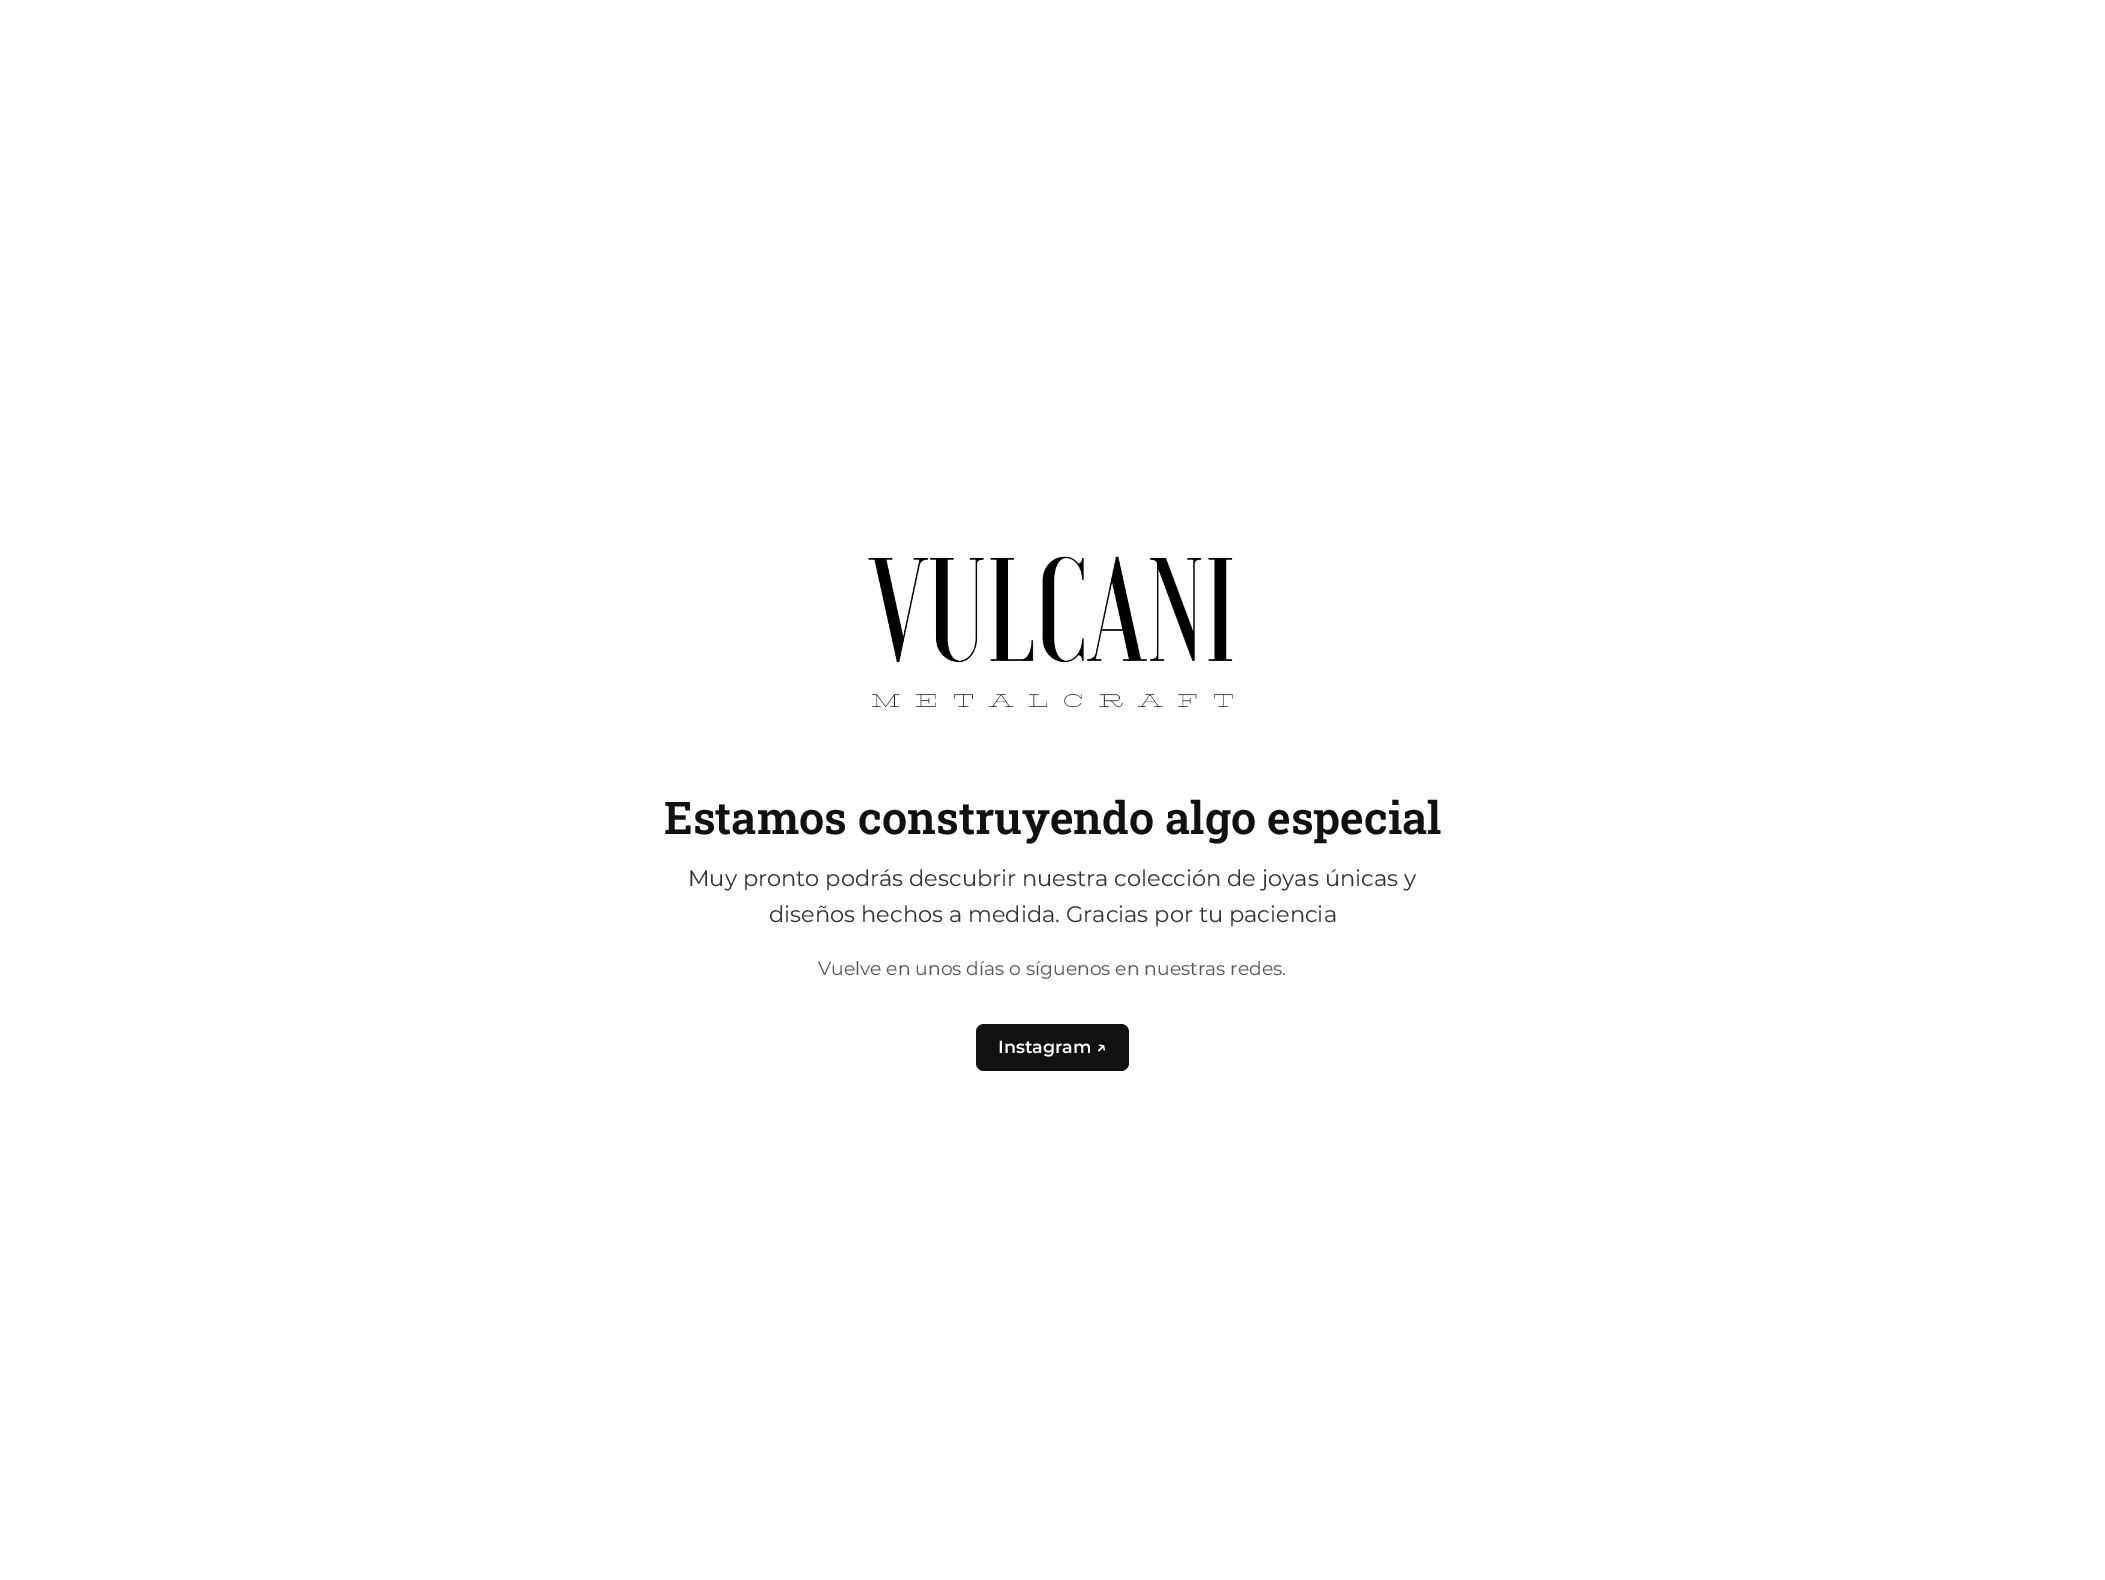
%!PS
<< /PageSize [2105 1580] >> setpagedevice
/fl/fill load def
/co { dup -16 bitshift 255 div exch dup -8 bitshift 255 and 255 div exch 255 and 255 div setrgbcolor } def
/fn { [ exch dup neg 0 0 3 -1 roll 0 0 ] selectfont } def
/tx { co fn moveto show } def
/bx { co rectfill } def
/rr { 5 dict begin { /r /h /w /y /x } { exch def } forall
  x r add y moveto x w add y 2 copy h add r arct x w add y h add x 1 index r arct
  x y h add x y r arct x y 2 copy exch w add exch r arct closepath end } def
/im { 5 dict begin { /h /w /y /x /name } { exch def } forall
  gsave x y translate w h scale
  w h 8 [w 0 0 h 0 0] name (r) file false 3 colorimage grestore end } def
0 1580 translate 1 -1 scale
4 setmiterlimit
0 0 2105 1580 16#FFFFFF bx
(media/1.raw) 868 556 365 152 im
16#111111 co
976 1024 153 47 8 rr fl
(Estamos construyendo algo especial) 664 834 /RobotoSlab-SemiBold 45 16#111111 tx
(Muy pronto podrás descubrir nuestra colección de joyas únicas y) 688 886 /Montserrat-Regular 22.5 16#333333 tx
(diseños hechos a medida. Gracias por tu paciencia) 769 922 /Montserrat-Regular 22.5 16#333333 tx
(Vuelve en unos días o síguenos en nuestras redes.) 818 975 /Montserrat-Regular 18.75 16#555555 tx
(Instagram) 998 1053 /Montserrat-SemiBold 17.5 16#FFFFFF tx
(↗) 1096 1053 /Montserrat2-SemiBold 17.5 16#FFFFFF tx
showpage
